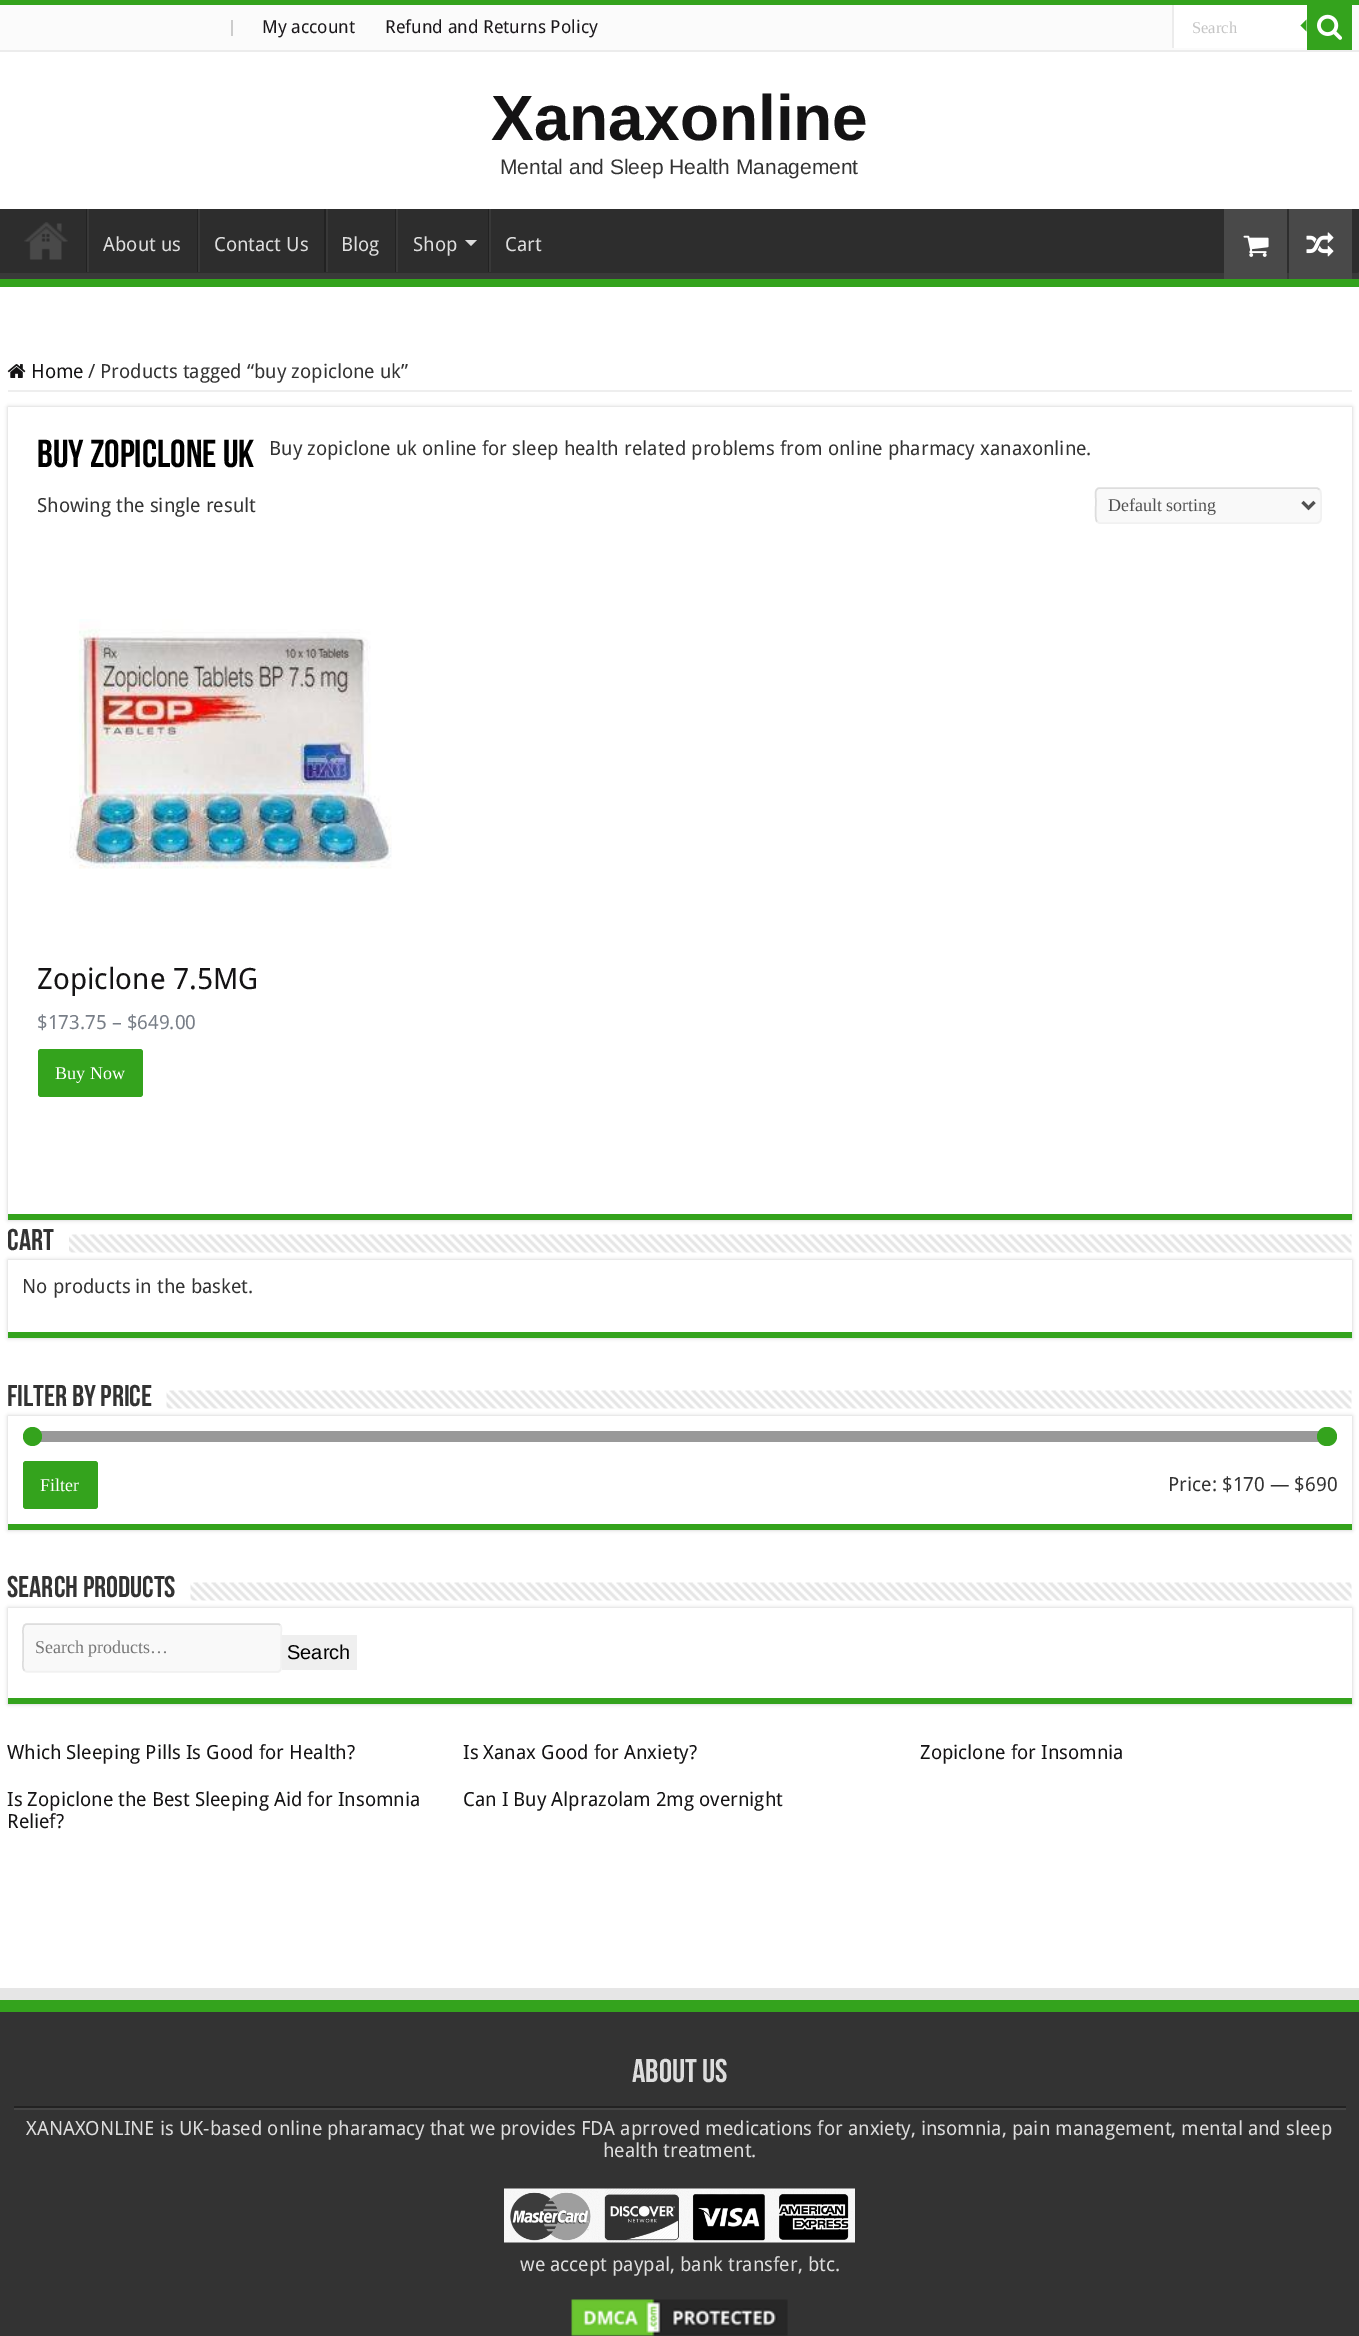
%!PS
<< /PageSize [1359 2336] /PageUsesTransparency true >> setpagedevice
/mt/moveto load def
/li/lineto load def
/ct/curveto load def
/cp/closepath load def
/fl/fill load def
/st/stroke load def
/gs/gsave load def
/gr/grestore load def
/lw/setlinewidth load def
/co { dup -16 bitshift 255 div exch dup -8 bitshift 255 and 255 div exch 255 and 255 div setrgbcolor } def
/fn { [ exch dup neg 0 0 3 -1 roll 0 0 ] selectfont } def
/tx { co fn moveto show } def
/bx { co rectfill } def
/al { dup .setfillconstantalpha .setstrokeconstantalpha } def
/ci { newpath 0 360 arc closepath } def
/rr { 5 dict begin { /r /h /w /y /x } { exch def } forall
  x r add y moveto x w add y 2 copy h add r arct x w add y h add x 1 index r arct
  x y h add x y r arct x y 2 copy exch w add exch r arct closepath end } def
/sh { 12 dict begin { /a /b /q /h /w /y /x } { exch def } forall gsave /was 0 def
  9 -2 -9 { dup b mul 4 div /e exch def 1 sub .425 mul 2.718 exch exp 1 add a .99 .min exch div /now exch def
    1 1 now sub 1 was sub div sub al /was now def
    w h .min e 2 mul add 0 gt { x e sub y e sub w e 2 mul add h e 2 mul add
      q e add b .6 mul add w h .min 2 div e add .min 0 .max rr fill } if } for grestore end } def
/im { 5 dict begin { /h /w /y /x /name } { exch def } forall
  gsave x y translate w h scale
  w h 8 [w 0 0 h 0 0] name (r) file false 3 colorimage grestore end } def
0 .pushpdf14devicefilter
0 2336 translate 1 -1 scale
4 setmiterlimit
0 0 1359 2336 16#FFFFFF bx
0 0 1359 5 16#34A31D bx
0 5 1359 45 16#FBFBFB bx
0 50 1359 2 16#ECECEC bx
231 20 2 16 16#CCCCCC bx
1174 5 133 43 16#FFFFFF bx
1172 5 2 43 16#ECECEC bx
1307 5 45 45 16#34A31D bx
(media/1.raw) 1317 14 25 26 im
1306.5 19.5 mt 1306.5 31.5 li 1300.5 25.5 li cp fl
0 209 1359 64 16#2D2D2D bx
gs
0 209 1359 70 rectclip
16#393939 co
-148 60 mt 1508 60 li 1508 428 li -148 428 li cp -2 200 mt 1358 200 li 1358 200 1359 200 1359 201 ct 1359 272 li 1359 272 1358 273 1358 273 ct -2 273 li -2 273 -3 272 -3 272 ct -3 201 li -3 200 -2 200 -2 200 ct cp eofill
gr
0 279 1359 8 16#34A31D bx
(media/2.raw) 24 222 44 38 im
86 209 1 63 16#222222 bx
87 209 2 63 16#383838 bx
197 209 1 63 16#222222 bx
198 209 2 63 16#383838 bx
324 209 2 63 16#222222 bx
326 209 2 63 16#383838 bx
395 209 1 63 16#222222 bx
396 209 2 63 16#383838 bx
16#DDDDDD co
465 240 mt 477 240 li 471 246 li cp fl
488 209 1 63 16#222222 bx
489 209 2 63 16#383838 bx
1224 209 63 70 16#494949 bx
(media/3.raw) 1243 235 26 22 im
1289 209 63 70 16#494949 bx
(media/4.raw) 1306 232 28 25 im
8 390 1344 2 16#EEEEEE bx
(media/5.raw) 7 364 19 14 im
16#CACACA co
8 407 1344 813 0 2 1 sh
8 407 1344 807 16#FFFFFF bx
8 1214 1344 6 16#34A31D bx
16#F9F9F9 co
1095 488 227 36 5 rr fl
16#F1F1F1 co
1.5 lw
1319.5 489.5 mt 1322 492 1321 506.5 1321 510 ct 1321 513 1323 522.5 1317 523 ct 1099.5 523 li 1097 521.5 li st
16#DDDDDD co
1097 521.5 mt 1094.5 519 1096 504.5 1096 501 ct 1096 498 1093.5 488.5 1099.5 488 ct 1317 488 li 1319.5 489.5 li st
16#515151 co
3 lw
1302.5 502 mt 1308.5 508 li 1314.5 502 li st
(media/6.raw) 69 619 323 250 im
16#34A31D co
38 1049 105 48 3 rr fl
(media/7.raw) 69 1234 1283 19 im
16#CACACA co
8 1260 1344 78 0 2 1 sh
8 1260 1344 72 16#FFFFFF bx
8 1332 1344 6 16#34A31D bx
(media/8.raw) 166 1390 1186 19 im
16#CACACA co
8 1416 1344 114 0 2 1 sh
8 1416 1344 108 16#FFFFFF bx
8 1524 1344 6 16#34A31D bx
16#999999 co
23 1431 1314 11 5.5 rr fl
16#34A31D co
32.5 1436.5 9.5 ci fl
1317 1427 20 19 9.5 rr fl
23 1461 75 48 3 rr fl
(media/9.raw) 190 1582 1162 19 im
16#CACACA co
8 1608 1344 96 0 2 1 sh
8 1608 1344 90 16#FFFFFF bx
8 1698 1344 6 16#34A31D bx
16#F9F9F9 co
23 1623 259 50 5 rr fl
16#F1F1F1 co
1.5 lw
280 1625 mt 282.5 1627 281 1632.5 281 1634 ct 281 1661 li 281 1664 282.5 1671.5 277.5 1672 ct 26 1671.5 li 24.5 1670.5 li st
16#DDDDDD co
24.5 1670.5 mt 22 1668.5 23 1663 23 1661 ct 23 1634 li 23 1631.5 22 1624 27 1624 ct 278.5 1624 li 280 1625 li st
282 1635 75 35 16#EFEFEF bx
0 1988 1359 12 16#E6E6E6 bx
0 2012 1359 324 16#333333 bx
0 2000 1359 12 16#34A31D bx
14 2106 1332 2 16#222222 bx
14 2108 1332 2 16#444444 bx
(media/10.raw) 504 2188 351 55 im
(media/11.raw) 571 2299 217 37 im
(My account) 262 33 /DroidSans-Regular 18 16#1A171A tx
(Refund and Returns Policy) 385 33 /DroidSans-Regular 18 16#1A171A tx
(Search) 1192 33 /LiberationSerif-Regular 16.5 16#C5C5C5 tx
(Xanaxonline) 491 140 /LiberationSans-Bold 64 16#141314 tx
(Mental and Sleep Health Management) 500 174 /LiberationSans-Regular 21 16#333333 tx
(About us) 103 251 /DroidSans-Regular 19.5 16#DDDDDD tx
(Contact Us) 214 251 /DroidSans-Regular 19.5 16#DDDDDD tx
(Blog) 341 251 /DroidSans-Regular 19.5 16#DDDDDD tx
(Shop) 413 251 /DroidSans-Regular 19.5 16#DDDDDD tx
(Cart) 505 251 /DroidSans-Regular 19.5 16#DDDDDD tx
(Home) 31 378 /DroidSans-Regular 19.5 16#141314 tx
(/) 88 378 /DroidSans-Regular 19.5 16#333333 tx
(Products tagged “buy zopiclone uk”) 100 378 /DroidSans-Regular 19.5 16#333333 tx
(buy zopiclone uk) 37 467 /BebasNeue-Bold 39 16#000000 tx
(Buy zopiclone uk online for sleep health related problems from online pharmacy xanaxonline.) 269 455 /DroidSans-Regular 19.5 16#333333 tx
(Showing the single result) 37 512 /DroidSans-Regular 19.5 16#333333 tx
(Default sorting) 1108 511 /LiberationSerif-Regular 18 16#515151 tx
(Zopiclone 7.5MG) 37 989 /DroidSans-Regular 29.25 16#141314 tx
($173.75 – $649.00) 37 1029 /DroidSans-Regular 19.5 16#787E87 tx
(Buy Now) 55 1079 /LiberationSerif-Regular 18 16#FFFFFF tx
(Cart) 7 1250 /BebasNeue-Bold 30 16#333333 tx
(No products in the basket.) 22 1293 /DroidSans-Regular 19.5 16#333333 tx
(Filter by price) 7 1406 /BebasNeue-Bold 30 16#333333 tx
(Filter) 40 1491 /LiberationSerif-Regular 18 16#FFFFFF tx
(Price: $170 — $690) 1168 1491 /DroidSans-Regular 19.5 16#333333 tx
(Search Products) 7 1597 /BebasNeue-Bold 30 16#333333 tx
(Search products…) 35 1653 /LiberationSerif-Regular 18 16#757575 tx
(Search) 287 1659 /LiberationSans-Regular 20 16#000000 tx
(Which Sleeping Pills Is Good for Health?) 7 1759 /DroidSans-Regular 19.5 16#141314 tx
(Is Xanax Good for Anxiety?) 463 1759 /DroidSans-Regular 19.5 16#141314 tx
(Zopiclone for Insomnia) 920 1759 /DroidSans-Regular 19.5 16#141314 tx
(Is Zopiclone the Best Sleeping Aid for Insomnia) 7 1806 /DroidSans-Regular 19.5 16#141314 tx
(Relief?) 7 1828 /DroidSans-Regular 19.5 16#141314 tx
(Can I Buy Alprazolam 2mg overnight) 463 1806 /DroidSans-Regular 19.5 16#141314 tx
(About us) 632 2082 /BebasNeue-Bold 33 16#DDDDDD tx
(XANAXONLINE is UK-based online pharamacy that we provides FDA aprroved medications for anxiety, insomnia, pain management, mental and sleep) 26 2135 /DroidSans-Regular 19.5 16#DDDDDD tx
(health treatment.) 603 2157 /DroidSans-Regular 19.5 16#DDDDDD tx
(we accept paypal, bank transfer, btc.) 520 2271 /DroidSans-Regular 19.5 16#DDDDDD tx
.poppdf14devicefilter showpage
